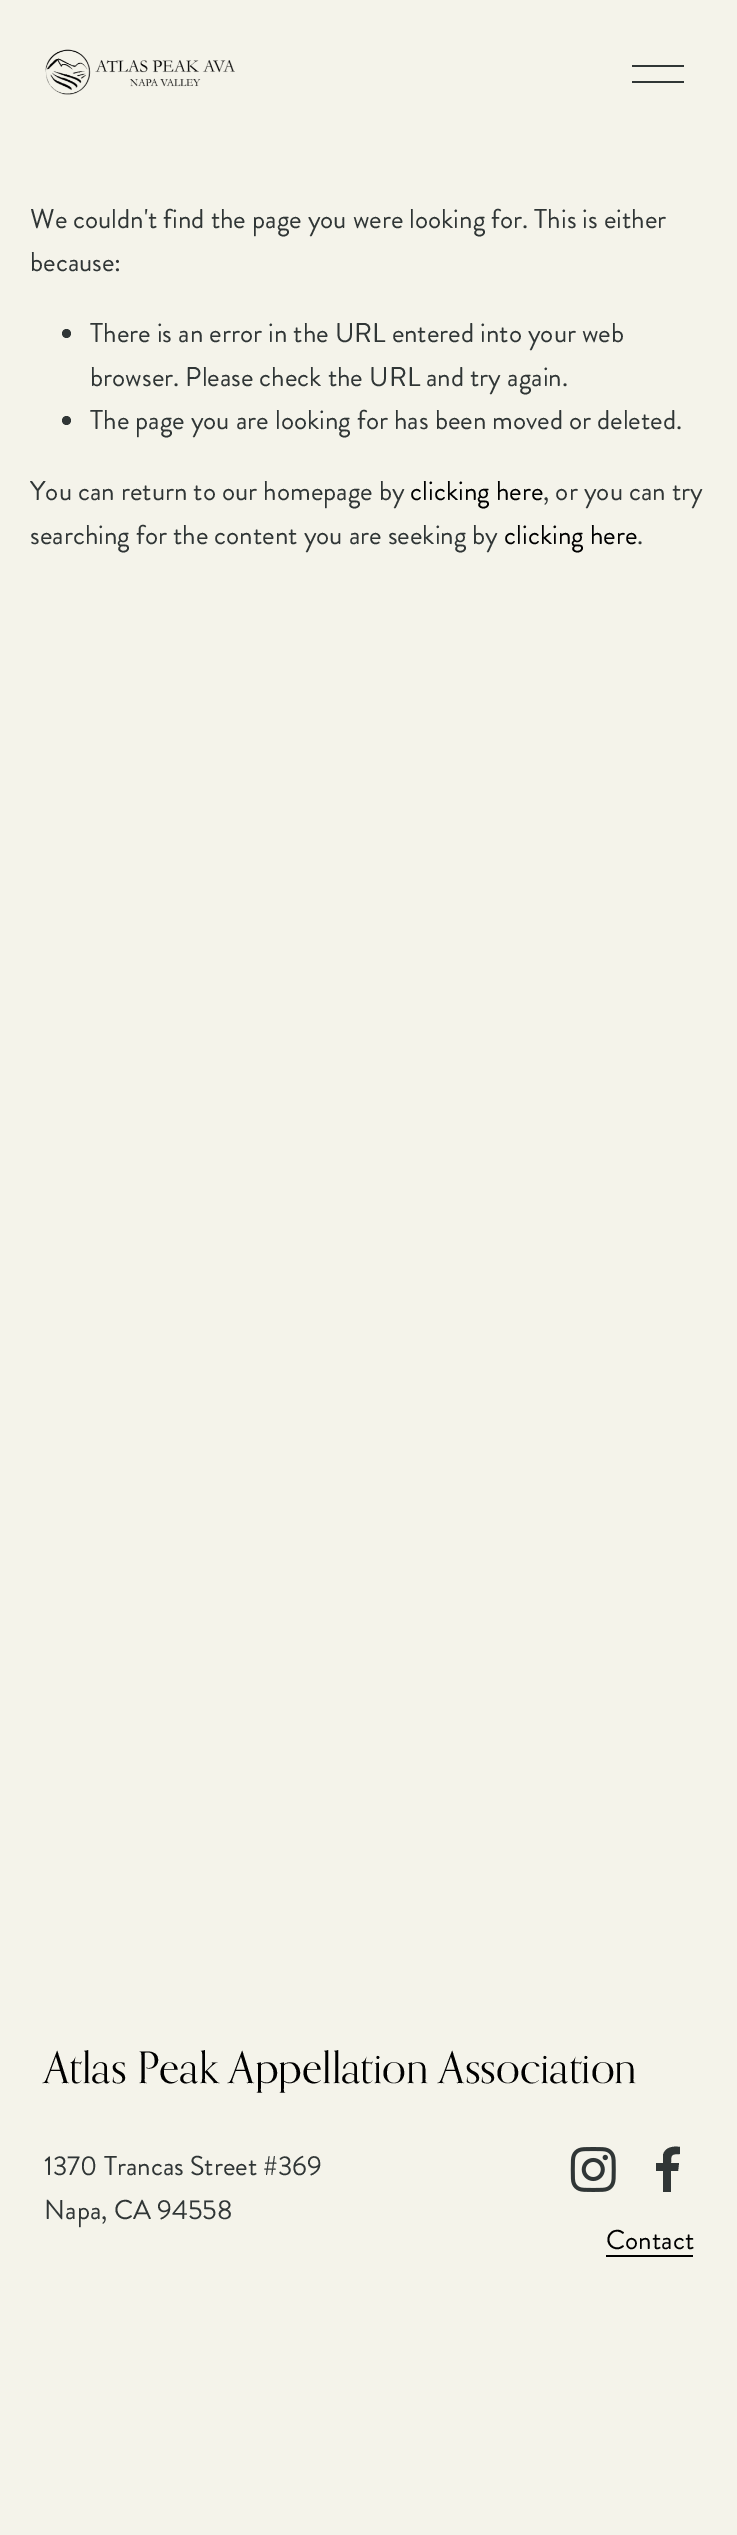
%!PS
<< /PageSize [737 2535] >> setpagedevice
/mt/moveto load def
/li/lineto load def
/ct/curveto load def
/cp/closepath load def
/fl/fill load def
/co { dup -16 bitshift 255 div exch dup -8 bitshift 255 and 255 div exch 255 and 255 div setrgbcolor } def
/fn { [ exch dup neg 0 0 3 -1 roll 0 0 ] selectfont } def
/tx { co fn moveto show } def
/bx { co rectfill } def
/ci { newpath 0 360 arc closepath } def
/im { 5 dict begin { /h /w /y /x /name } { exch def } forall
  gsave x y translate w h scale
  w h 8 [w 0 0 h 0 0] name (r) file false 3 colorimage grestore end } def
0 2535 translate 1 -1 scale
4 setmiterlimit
0 0 737 2535 16#F4F3EA bx
(media/1.raw) 45 49 190 46 im
632 65 52 2 16#303636 bx
632 81 52 2 16#303636 bx
66.5 333.5 4.5 ci fl
66.5 420.5 4.5 ci fl
(media/2.raw) 570 2147 46 45 im
671 2192 mt 671 2171 li 678 2171 li 679 2163 li 671 2163 li 671 2155 671 2154 680 2154 ct 680 2147 li 673 2146 665 2147 663 2155 ct 663 2163 li 656 2163 li 656 2171 li 663 2171 li 663 2192 li cp fl
606 2255 87 2 16#000000 bx
(We couldn't find the page you were looking for. This is either) 30 228 /BrandonGrotesque-Regular 27.25 16#303636 tx
(because:) 30 271 /BrandonGrotesque-Regular 27.25 16#303636 tx
(There is an error in the URL entered into your web) 90 342 /BrandonGrotesque-Regular 27.25 16#303636 tx
(browser. Please check the URL and try again.) 90 386 /BrandonGrotesque-Regular 27.25 16#303636 tx
(The page you are looking for has been moved or deleted.) 90 429 /BrandonGrotesque-Regular 27.25 16#303636 tx
(You can return to our homepage by) 30 500 /BrandonGrotesque-Regular 27.25 16#303636 tx
(clicking here) 410 500 /BrandonGrotesque-Regular 27.25 16#000000 tx
(, or you can try) 543 500 /BrandonGrotesque-Regular 27.25 16#303636 tx
(searching for the content you are seeking by) 30 544 /BrandonGrotesque-Regular 27.25 16#303636 tx
(clicking here) 504 544 /BrandonGrotesque-Regular 27.25 16#000000 tx
(.) 637 544 /BrandonGrotesque-Regular 27.25 16#303636 tx
(Atlas Peak Appellation Association) 44 2083 /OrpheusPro-Regular 43.5 16#000000 tx
(1370 Trancas Street #369) 44 2175 /BrandonGrotesque-Regular 27.25 16#303636 tx
(Napa, CA 94558) 44 2219 /BrandonGrotesque-Regular 27.25 16#303636 tx
(Contact) 606 2249 /BrandonGrotesque-Regular 27.25 16#000000 tx
showpage
